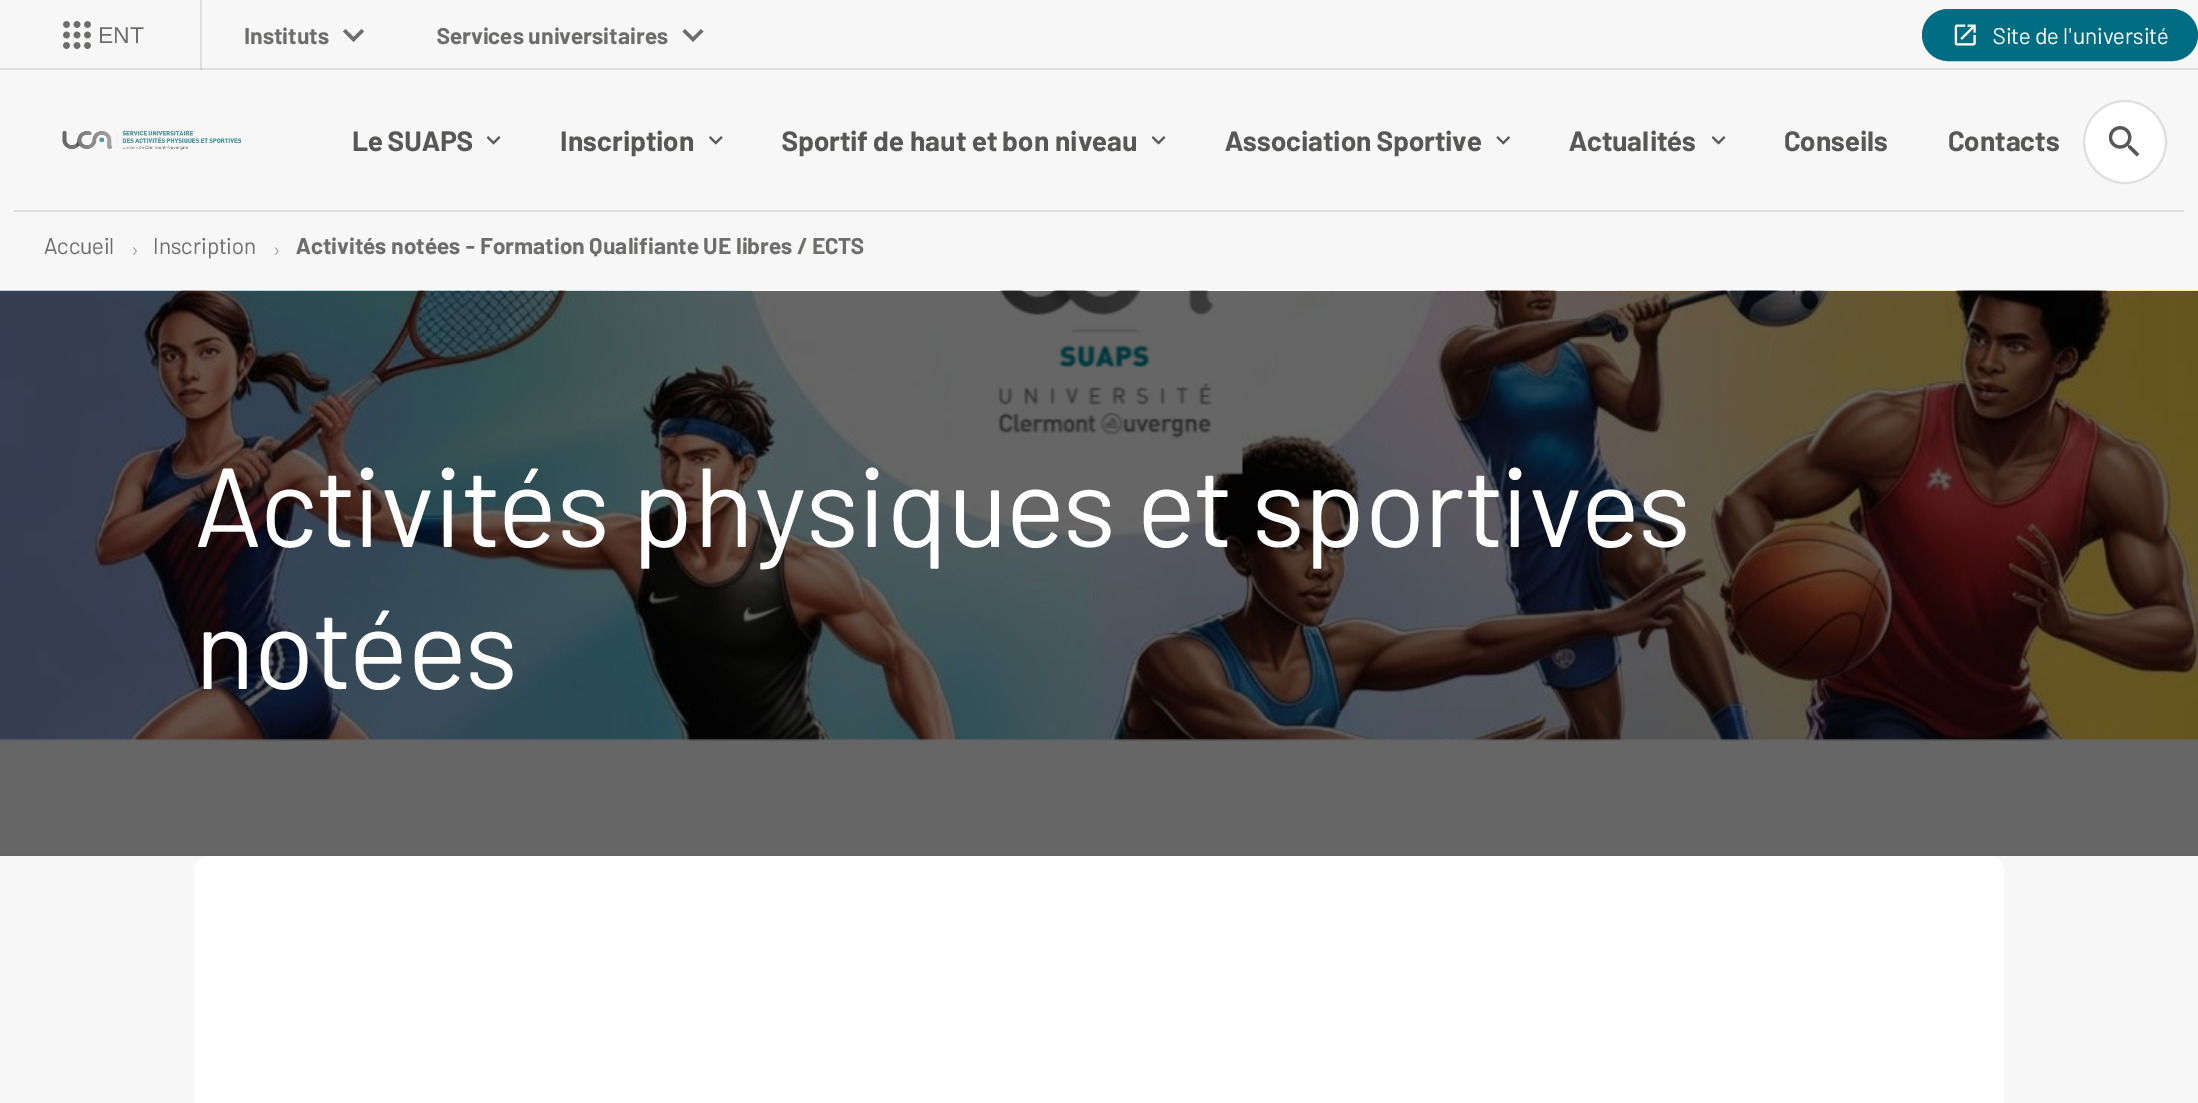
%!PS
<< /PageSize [2198 1103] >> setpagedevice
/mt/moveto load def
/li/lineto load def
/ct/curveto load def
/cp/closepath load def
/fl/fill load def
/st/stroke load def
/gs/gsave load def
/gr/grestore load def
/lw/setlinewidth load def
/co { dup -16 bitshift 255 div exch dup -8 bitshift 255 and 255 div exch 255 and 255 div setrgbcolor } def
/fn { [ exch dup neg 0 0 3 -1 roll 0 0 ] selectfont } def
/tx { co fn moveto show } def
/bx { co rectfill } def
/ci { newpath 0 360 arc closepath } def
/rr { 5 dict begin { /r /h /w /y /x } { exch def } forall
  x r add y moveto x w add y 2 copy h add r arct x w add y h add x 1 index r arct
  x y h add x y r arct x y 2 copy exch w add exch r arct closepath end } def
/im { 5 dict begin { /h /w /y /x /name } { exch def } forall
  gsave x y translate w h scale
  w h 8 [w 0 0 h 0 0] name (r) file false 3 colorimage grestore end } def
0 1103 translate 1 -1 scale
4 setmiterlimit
0 0 2198 1103 16#F7F7F7 bx
200 0 2 70 16#DEDEDE bx
0 68 2198 2 16#DEDEDE bx
200 68 2 2 16#C8C8C8 bx
(media/1.raw) 63 21 28 28 im
16#6D6D6C co
345.5 29 mt 353.5 37 li 361.5 29 li 364 31.5 li 353.5 42 li 343 31.5 li cp eofill
685 29 mt 693 37 li 701 29 li 703.5 31.5 li 693 42 li 682.5 31.5 li cp eofill
16#006D82 co
1923 10 274 50 25 rr gs fl gr
2 lw
st
(media/2.raw) 1954 24 22 22 im
(media/3.raw) 62 131 180 19 im
(media/4.raw) 487 136 14 9 im
(media/5.raw) 709 136 14 9 im
(media/4.raw) 1152 136 14 9 im
(media/6.raw) 1496 136 14 9 im
(media/4.raw) 1712 136 14 9 im
16#FFFFFF co
2125 142 41 ci gs fl gr
16#DFDFDF co
st
(media/7.raw) 2109 126 31 31 im
14 210 2170 2 16#DEDEDE bx
(media/8.raw) 132 247 5 8 im
(media/9.raw) 274 247 5 8 im
(media/10.raw) 0 290 2198 566 im
16#FFFFFF co
208 856 mt 1990 856 li 1997.5 856 2004 862.5 2004 870 ct 2004 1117 li 194 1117 li 194 870 li 194 862.5 200.5 856 208 856 ct cp fl
(ENT) 98 43 /LiberationSans-Regular 23 16#6D6D6C tx
(Instituts) 244 44 /Barlow-Bold 22.75 16#6D6D6C tx
(Services universitaires) 437 44 /Barlow-Bold 22.75 16#6D6D6C tx
(Site de l'université) 1993 44 /Barlow-Regular 22.75 16#FFFFFF tx
(Le SUAPS) 352 151 /Barlow-Bold 28 16#575756 tx
(Inscription) 560 151 /Barlow-Bold 28 16#575756 tx
(Sportif de haut et bon niveau) 782 151 /Barlow-Bold 28 16#575756 tx
(Association Sportive) 1225 151 /Barlow-Bold 28 16#575756 tx
(Actualités) 1569 151 /Barlow-Bold 28 16#575756 tx
(Conseils) 1784 151 /Barlow-Bold 28 16#575756 tx
(Contacts) 1948 151 /Barlow-Bold 28 16#575756 tx
(Accueil) 44 254 /Barlow-Regular 22.75 16#6D6D6C tx
(Inscription) 153 254 /Barlow-Regular 22.75 16#6D6D6C tx
(Activités notées - Formation Qualifiante UE libres / ECTS) 296 254 /Barlow-Bold 22.75 16#6D6D6C tx
(Activités physiques et sportives) 195 547 /Barlow-Regular 112 16#FFFFFF tx
(notées) 195 689 /Barlow-Regular 112 16#FFFFFF tx
showpage
